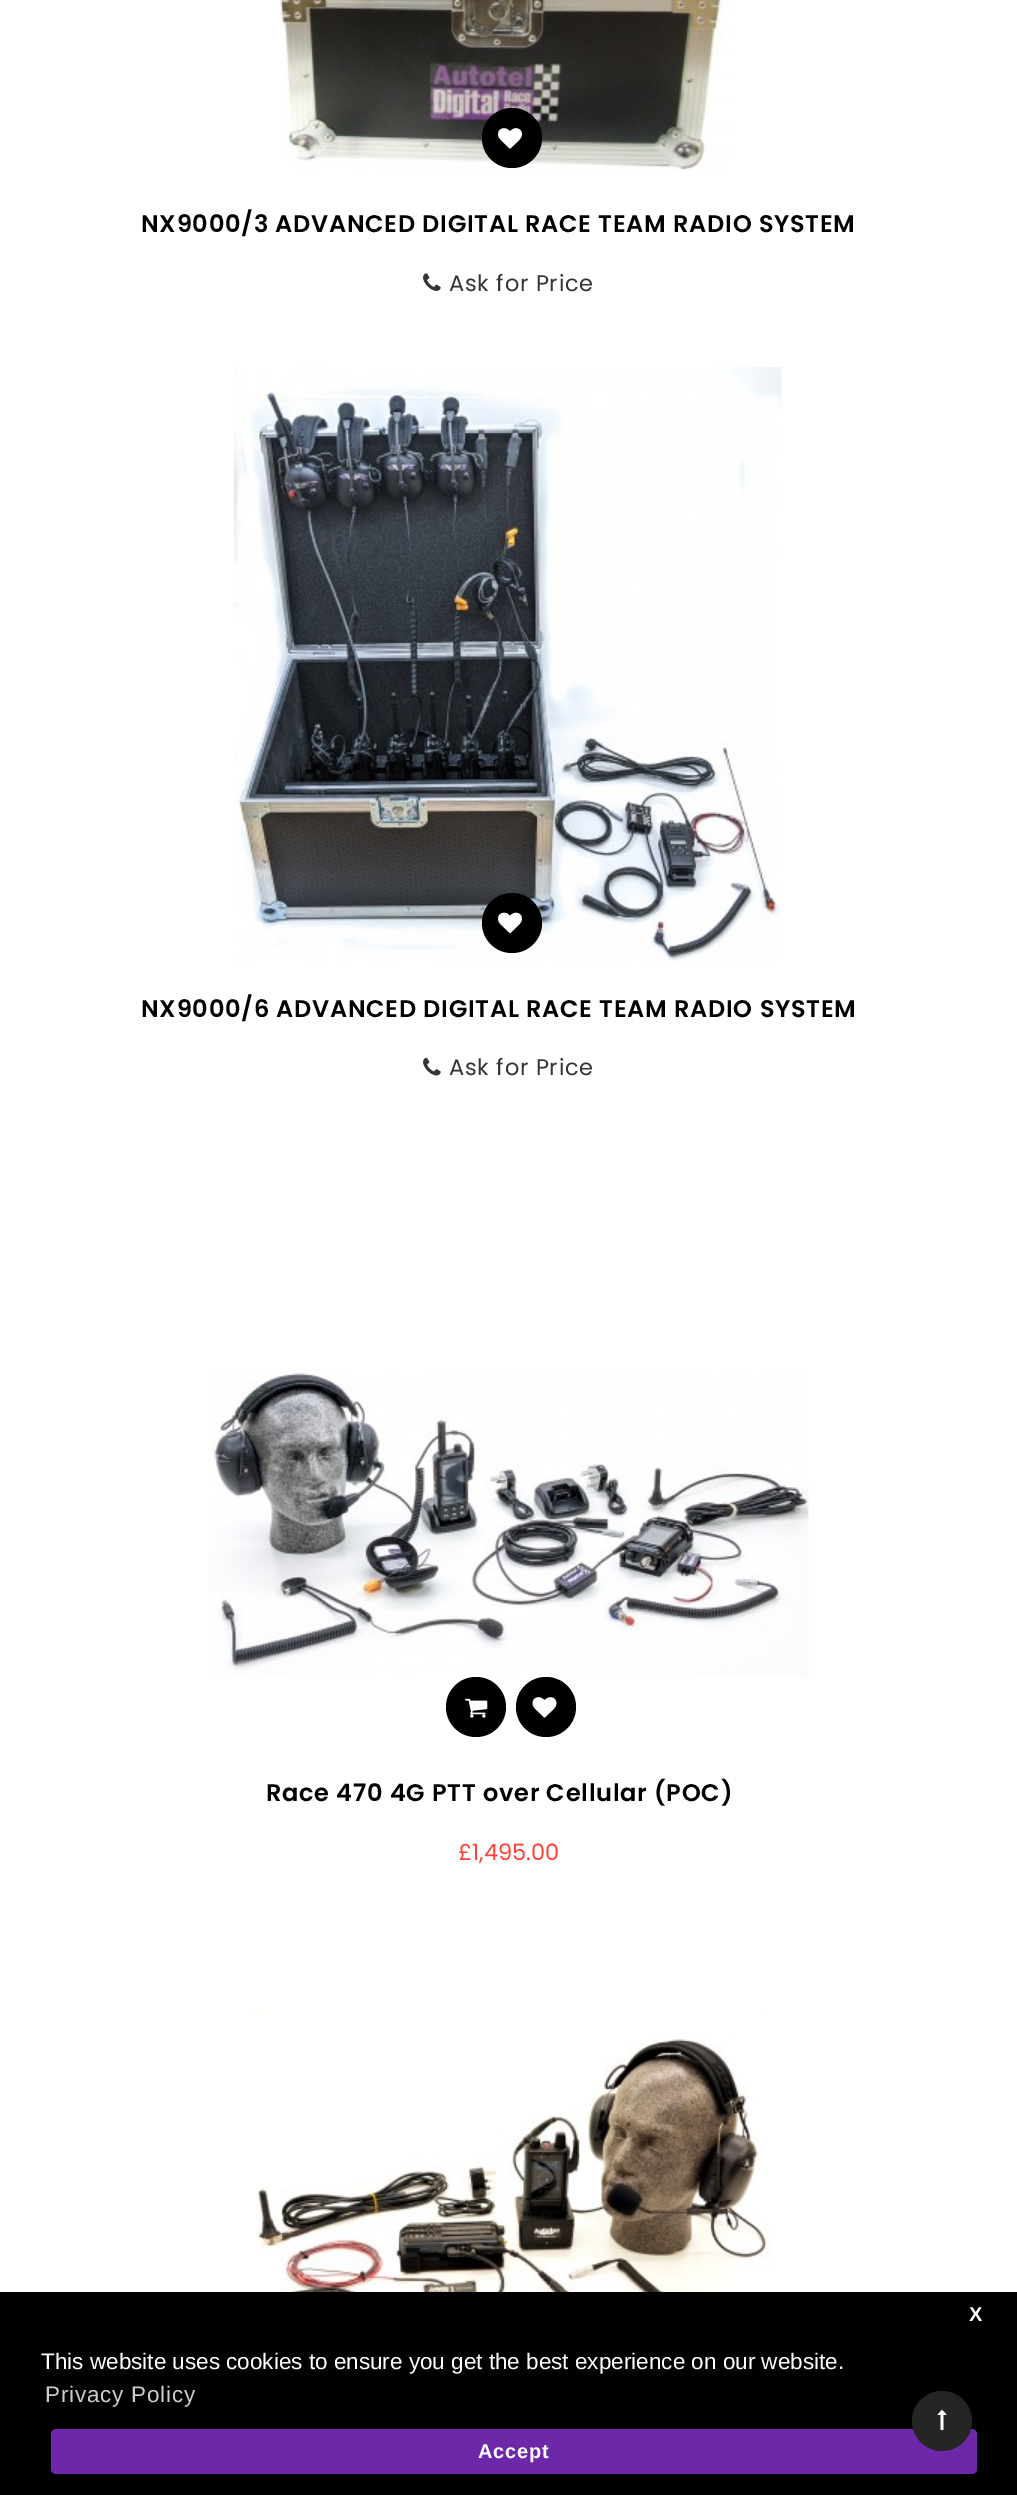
%!PS
<< /PageSize [1017 2495] >> setpagedevice
/mt/moveto load def
/fl/fill load def
/co { dup -16 bitshift 255 div exch dup -8 bitshift 255 and 255 div exch 255 and 255 div setrgbcolor } def
/fn { [ exch dup neg 0 0 3 -1 roll 0 0 ] selectfont } def
/tx { co fn moveto show } def
/bx { co rectfill } def
/ci { newpath 0 360 arc closepath } def
/rr { 5 dict begin { /r /h /w /y /x } { exch def } forall
  x r add y moveto x w add y 2 copy h add r arct x w add y h add x 1 index r arct
  x y h add x y r arct x y 2 copy exch w add exch r arct closepath end } def
/im { 5 dict begin { /h /w /y /x /name } { exch def } forall
  gsave x y translate w h scale
  w h 8 [w 0 0 h 0 0] name (r) file false 3 colorimage grestore end } def
0 2495 translate 1 -1 scale
4 setmiterlimit
0 0 1017 2495 16#FFFFFF bx
(media/1.raw) 279 0 457 170 im
16#000000 co
512 138 30 ci fl
(media/2.raw) 498 128 24 21 im
(media/3.raw) 423 273 18 18 im
(media/4.raw) 232 367 552 600 im
512 923 30 ci fl
(media/5.raw) 498 912 24 22 im
(media/6.raw) 423 1057 18 19 im
(media/7.raw) 208 1368 601 308 im
476 1707 30 ci fl
(media/8.raw) 465 1698 23 20 im
546 1707 30 ci fl
(media/9.raw) 532 1697 25 21 im
(media/10.raw) 245 2009 526 283 im
0 2292 1017 203 16#000000 bx
16#6D28A9 co
51 2429 926 45 5 rr fl
16#252525 co
942 2421 30 ci fl
(media/11.raw) 937 2409 10 21 im
/Poppins-SemiBold 24 fn
16#000000 co
141 232 mt .75 0 (NX9000/3 ADVANCED DIGITAL RACE TEAM RADIO SYSTEM) ashow
/Poppins-Regular 22.5 fn
16#353535 co
449 291 mt .75 0 (Ask for Price) ashow
/Poppins-SemiBold 24 fn
16#000000 co
141 1017 mt .75 0 (NX9000/6 ADVANCED DIGITAL RACE TEAM RADIO SYSTEM) ashow
/Poppins-Regular 22.5 fn
16#353535 co
449 1075 mt .75 0 (Ask for Price) ashow
/Poppins-SemiBold 24 fn
16#000000 co
266 1801 mt .75 0 (Race 470 4G PTT over Cellular \(POC\)) ashow
(£1,495.00) 458 1860 /Poppins-Regular 22.5 16#FF4136 tx
/LiberationSans-Bold 20 fn
16#FFFFFF co
969 2321 mt .75 0 (X) ashow
478 2458 mt .75 0 (Accept) ashow
(This website uses cookies to ensure you get the best experience on our website.) 41 2369 /LiberationSans-Regular 22.5 16#FFFFFF tx
16#CCCCCC co
45 2402 mt .75 0 (Privacy Policy) ashow
showpage
